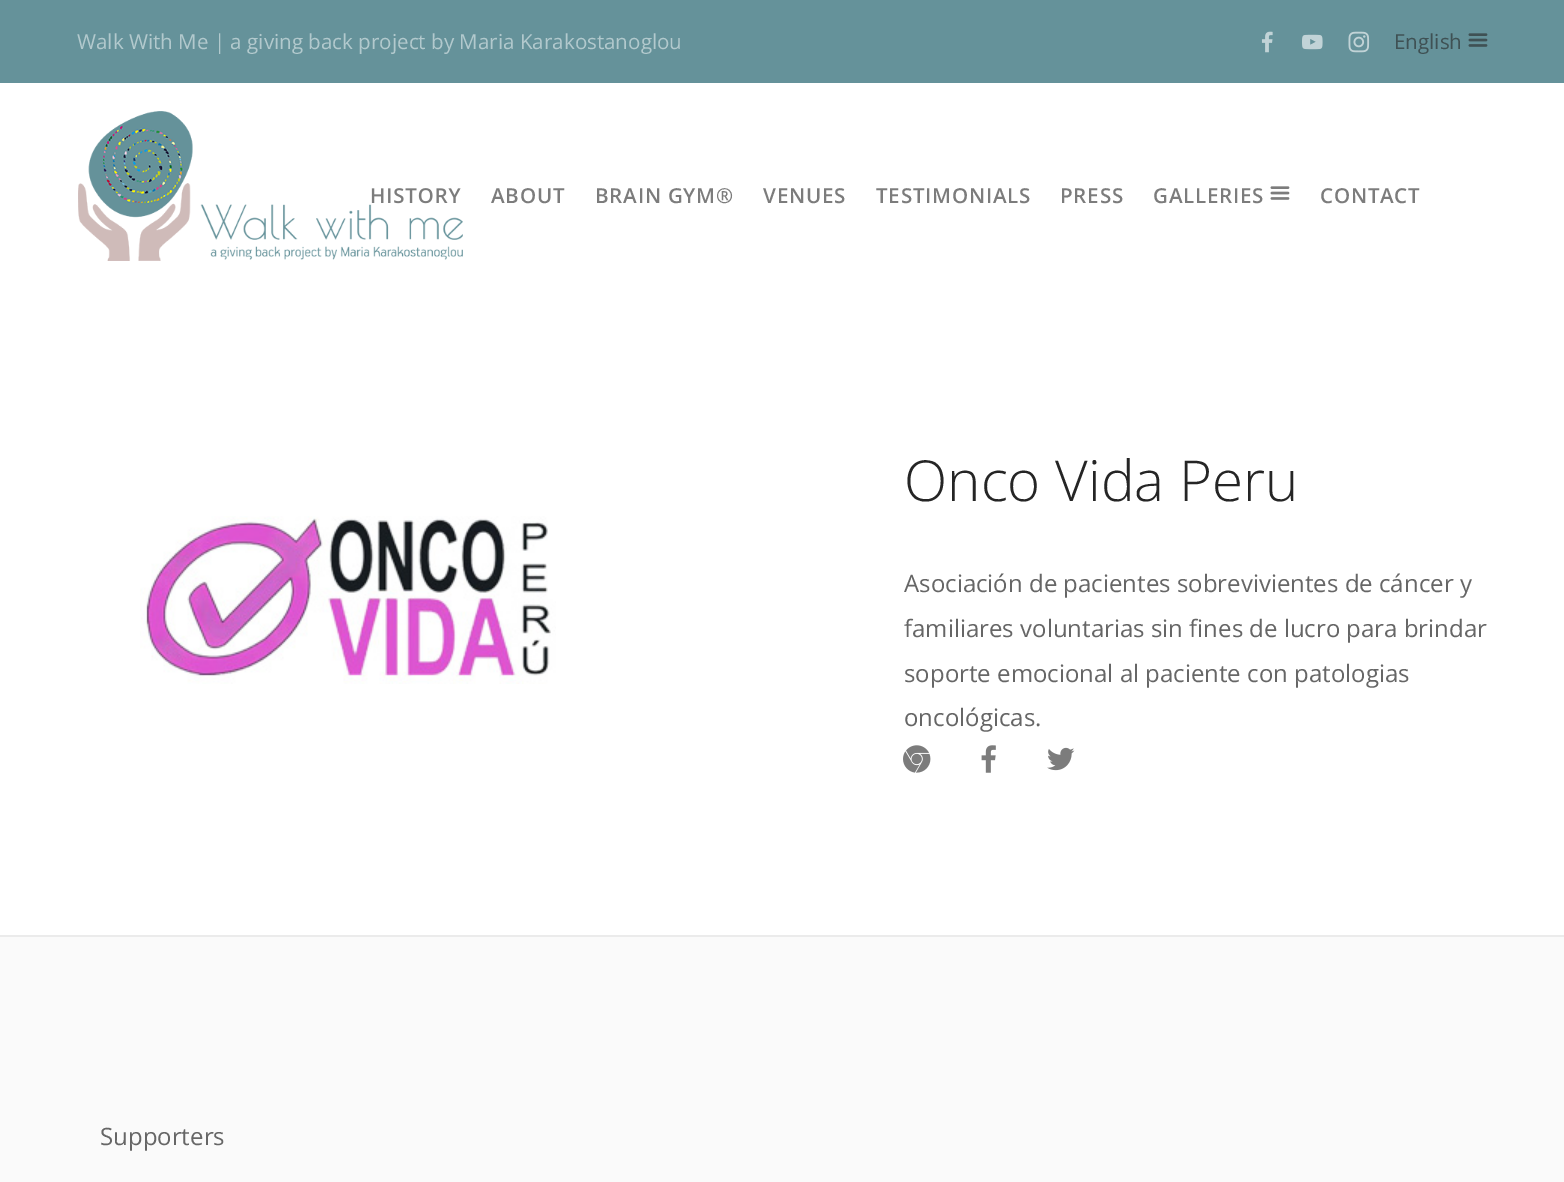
%!PS
<< /PageSize [1564 1182] >> setpagedevice
/mt/moveto load def
/co { dup -16 bitshift 255 div exch dup -8 bitshift 255 and 255 div exch 255 and 255 div setrgbcolor } def
/fn { [ exch dup neg 0 0 3 -1 roll 0 0 ] selectfont } def
/tx { co fn moveto show } def
/bx { co rectfill } def
/im { 5 dict begin { /h /w /y /x /name } { exch def } forall
  gsave x y translate w h scale
  w h 8 [w 0 0 h 0 0] name (r) file false 3 colorimage grestore end } def
0 1182 translate 1 -1 scale
4 setmiterlimit
0 0 1564 1182 16#FFFFFF bx
0 0 1564 83 16#65929A bx
(media/1.raw) 1261 31 12 22 im
(media/2.raw) 1302 34 21 16 im
(media/3.raw) 1348 31 22 22 im
(media/4.raw) 1468 33 20 14 im
(media/6.raw) 1270 186 20 14 im
(media/7.raw) 140 516 416 168 im
(media/8.raw) 903 745 28 28 im
(media/9.raw) 981 745 15 28 im
(media/10.raw) 1047 747 28 24 im
0 937 1564 245 16#FAFAFA bx
0 935 1564 2 16#EBEBEB bx
(Walk With Me | a giving back project by Maria Karakostanoglou) 77 49 /OpenSans-Regular 20.6 16#B2C9CD tx
(English) 1394 49 /OpenSans-Regular 20.6 16#3F5154 tx
/OpenSans-SemiBold 20.6 fn
16#7C7C7C co
370 203 mt .75 0 (HISTORY) ashow
(media/5.raw) 78 111 385 150 im
491 203 mt .75 0 (ABOUT) ashow
595 203 mt .75 0 (BRAIN GYM®) ashow
763 203 mt .75 0 (VENUES) ashow
876 203 mt .75 0 (TESTIMONIALS) ashow
1060 203 mt .75 0 (PRESS) ashow
1153 203 mt .75 0 (GALLERIES) ashow
1320 203 mt .75 0 (CONTACT) ashow
(Onco Vida Peru) 904 501 /OpenSans-Light 56.5 16#252525 tx
(Asociación de pacientes sobrevivientes de cáncer y) 904 592 /OpenSans-Regular 24 16#666666 tx
(familiares voluntarias sin fines de lucro para brindar) 904 637 /OpenSans-Regular 24 16#666666 tx
(soporte emocional al paciente con patologias) 904 682 /OpenSans-Regular 24 16#666666 tx
(oncológicas.) 904 726 /OpenSans-Regular 24 16#666666 tx
(Supporters) 100 1145 /OpenSans-Regular 24 16#666666 tx
showpage
